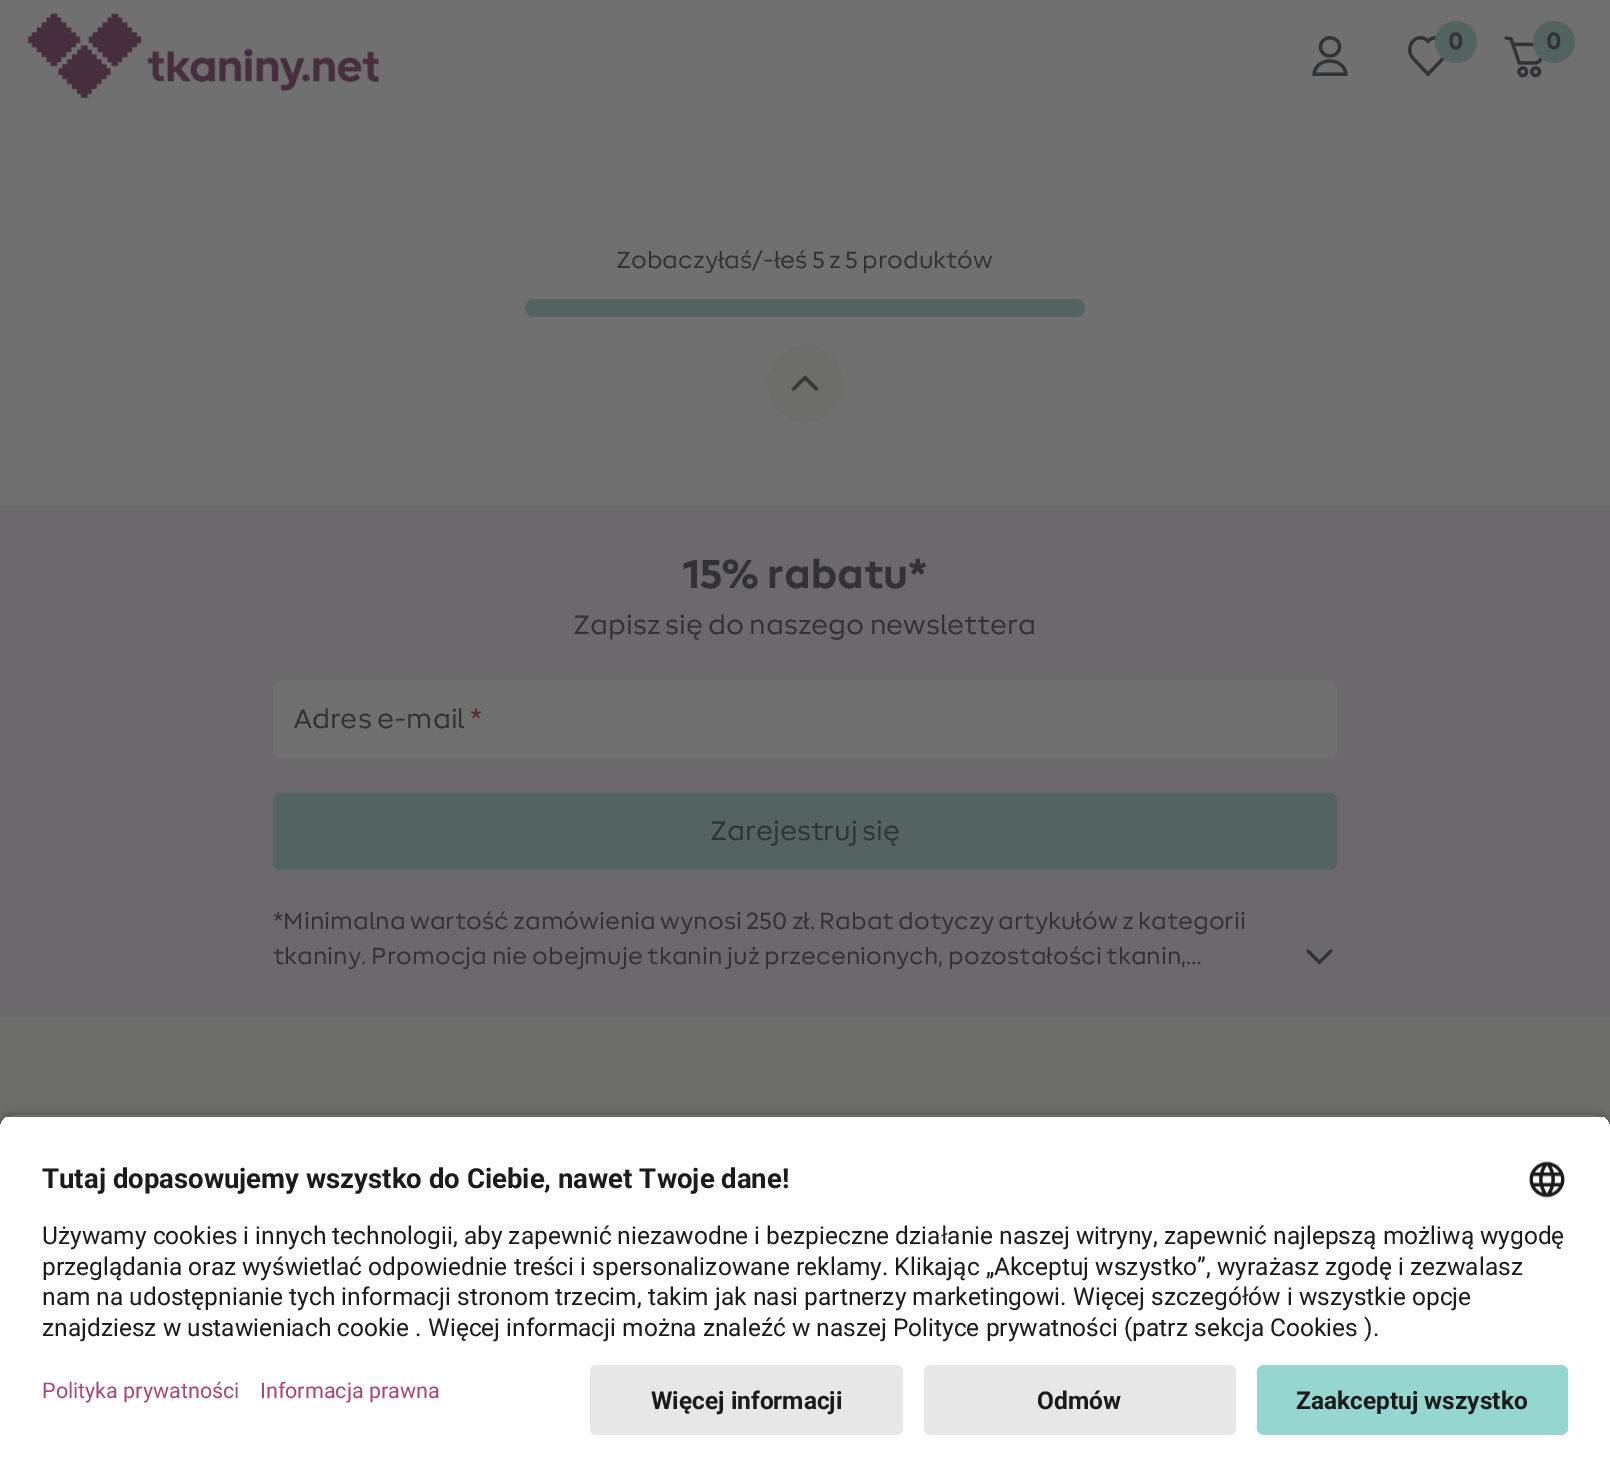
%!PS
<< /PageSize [1610 1476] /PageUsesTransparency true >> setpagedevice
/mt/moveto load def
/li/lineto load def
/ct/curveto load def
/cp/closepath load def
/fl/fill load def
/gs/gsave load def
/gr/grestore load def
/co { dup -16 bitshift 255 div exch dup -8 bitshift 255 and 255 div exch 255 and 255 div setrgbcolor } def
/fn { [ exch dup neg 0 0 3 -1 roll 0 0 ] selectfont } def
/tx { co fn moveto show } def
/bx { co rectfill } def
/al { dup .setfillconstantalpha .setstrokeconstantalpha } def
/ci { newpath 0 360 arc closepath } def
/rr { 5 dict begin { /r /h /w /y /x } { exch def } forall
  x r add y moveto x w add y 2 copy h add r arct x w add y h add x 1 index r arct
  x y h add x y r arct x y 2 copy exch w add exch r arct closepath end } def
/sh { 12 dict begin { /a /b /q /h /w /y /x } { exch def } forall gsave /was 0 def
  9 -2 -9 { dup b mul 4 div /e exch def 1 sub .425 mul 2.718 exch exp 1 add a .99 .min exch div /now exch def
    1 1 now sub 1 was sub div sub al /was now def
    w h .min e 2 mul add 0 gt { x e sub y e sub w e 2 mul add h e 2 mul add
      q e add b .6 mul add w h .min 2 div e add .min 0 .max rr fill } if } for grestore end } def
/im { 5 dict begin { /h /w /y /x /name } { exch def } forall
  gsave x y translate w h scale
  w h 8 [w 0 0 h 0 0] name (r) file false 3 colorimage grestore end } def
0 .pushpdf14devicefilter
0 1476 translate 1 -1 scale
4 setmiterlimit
0 0 1610 1476 16#707070 bx
(media/1.raw) 28 13 351 85 im
(media/2.raw) 1312 36 36 40 im
(media/3.raw) 1408 36 37 41 im
16#53635F co
1456 42 21 ci fl
(media/4.raw) 1504 36 39 42 im
1554 42 21 ci fl
525 299 560 18 9 rr fl
16#6D6D6C co
805.5 383.5 38.5 ci fl
(media/5.raw) 791 375 28 17 im
0 506 1610 511 16#6B696B bx
16#707070 co
273 681 1064 77 7 rr fl
16#53635F co
273 793 1064 77 7 rr fl
(media/6.raw) 1306 949 27 16 im
0 1017 1610 112 16#6D6D6C bx
gs
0 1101 mt 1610 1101 li 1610 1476 li 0 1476 li cp 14 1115 mt 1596 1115 li 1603.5 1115 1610 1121.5 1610 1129 ct 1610 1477 li 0 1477 li 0 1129 li 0 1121.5 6.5 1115 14 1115 ct cp eoclip newpath
16#000000 co
0 1120 1610 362 14 6 .8 sh
gr
gs
14 1115 mt 1596 1115 li 1603.5 1115 1610 1121.5 1610 1129 ct 1610 1351 li 0 1351 li 0 1129 li 0 1121.5 6.5 1115 14 1115 ct cp clip newpath
0 1117 1610 234 16#FFFFFF bx
gr
(media/7.raw) 1529 1161 36 37 im
0 1351 1610 125 16#FFFFFF bx
16#E7E7E7 co
590 1365 313 70 7 rr fl
924 1365 312 70 7 rr fl
16#95D6D1 co
1257 1365 311 70 7 rr fl
(0) 1448 49 /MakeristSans-Bold 24.5 16#323235 tx
(0) 1546 49 /MakeristSans-Bold 24.5 16#323235 tx
/MakeristSans-Regular 24.5 fn
616 268 mt -.5 0 32 (Zobaczyłaś/-łeś 5 z 5 produktów) widthshow
(15% rabatu*) 682 588 /MakeristSans-Bold 42 16#323235 tx
/MakeristSans-Regular 28 fn
573 634 mt -.5 0 32 (Zapisz się do naszego newslettera) widthshow
(Adres e-mail) 294 728 /MakeristSans-Regular 28 16#323235 tx
(*) 470 728 /MakeristSans-Regular 28 16#57292A tx
16#323235 co
710 840 mt -1 0 32 (Zarejestruj się) widthshow
/MakeristSans-Regular 24.5 fn
273 929 mt -.5 0 32 (*Minimalna wartość zamówienia wynosi 250 zł. Rabat dotyczy artykułów z kategorii) widthshow
(tkaniny. Promocja nie obejmuje tkanin już przecenionych, pozostałości tkanin,…) 273 964 /MakeristSans-Regular 24.5 16#323235 tx
(Tutaj dopasowujemy wszystko do Ciebie, nawet Twoje dane!) 42 1188 /Roboto-Bold 27.55 16#1B1B1B tx
(Używamy cookies i innych technologii, aby zapewnić niezawodne i bezpieczne działanie naszej witryny, zapewnić najlepszą możliwą wygodę) 42 1244 /Roboto-Regular 24.5 16#1B1B1B tx
(przeglądania oraz wyświetlać odpowiednie treści i spersonalizowane reklamy. Klikając „Akceptuj wszystko”, wyrażasz zgodę i zezwalasz) 42 1275 /Roboto-Regular 24.5 16#1B1B1B tx
(nam na udostępnianie tych informacji stronom trzecim, takim jak nasi partnerzy marketingowi. Więcej szczegółów i wszystkie opcje) 42 1305 /Roboto-Regular 24.5 16#1B1B1B tx
(znajdziesz w ustawieniach cookie . Więcej informacji można znaleźć w naszej Polityce prywatności \(patrz sekcja Cookies \).) 42 1336 /Roboto-Regular 24.5 16#1B1B1B tx
(Polityka prywatności) 42 1398 /Roboto-Regular 21.5 16#A3477D tx
(Informacja prawna) 260 1398 /Roboto-Regular 21.5 16#A3477D tx
(Więcej informacji) 651 1409 /Roboto-Bold 24.5 16#1B1B1B tx
(Odmów) 1037 1409 /Roboto-Bold 24.5 16#1B1B1B tx
(Zaakceptuj wszystko) 1296 1409 /Roboto-Bold 24.5 16#1B1B1B tx
.poppdf14devicefilter showpage
